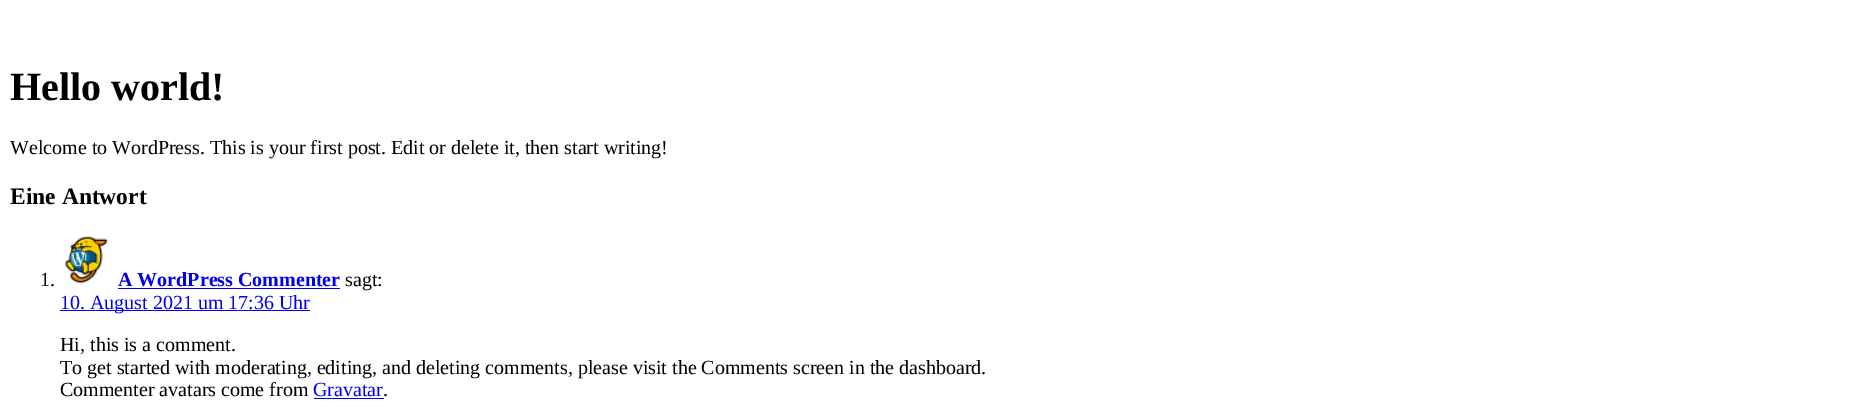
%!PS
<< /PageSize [1851 416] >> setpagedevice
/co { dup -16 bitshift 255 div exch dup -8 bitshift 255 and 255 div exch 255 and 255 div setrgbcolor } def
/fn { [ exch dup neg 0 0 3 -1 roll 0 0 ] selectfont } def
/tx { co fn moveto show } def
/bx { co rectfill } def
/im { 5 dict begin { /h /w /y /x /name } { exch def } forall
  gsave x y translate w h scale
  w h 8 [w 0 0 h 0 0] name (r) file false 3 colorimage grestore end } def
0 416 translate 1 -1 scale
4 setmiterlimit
0 0 1851 416 16#FFFFFF bx
(media/1.raw) 64 236 44 48 im
118 288 222 1 16#0000EE bx
60 310 250 1 16#0000EE bx
314 398 70 1 16#0000EE bx
(Hello world!) 10 100 /LiberationSerif-Bold 40 16#000000 tx
(Welcome to WordPress. This is your first post. Edit or delete it, then start writing!) 10 154 /LiberationSerif-Regular 20 16#000000 tx
(Eine Antwort) 10 204 /LiberationSerif-Bold 23.5 16#000000 tx
(1.) 40 286 /LiberationSerif-Regular 20 16#000000 tx
(A WordPress Commenter) 118 286 /LiberationSerif-Bold 20 16#0000EE tx
(sagt:) 345 286 /LiberationSerif-Regular 20 16#000000 tx
(10. August 2021 um 17:36 Uhr) 60 309 /LiberationSerif-Regular 20 16#0000EE tx
(Hi, this is a comment.) 60 351 /LiberationSerif-Regular 20 16#000000 tx
(To get started with moderating, editing, and deleting comments, please visit the Comments screen in the dashboard.) 60 374 /LiberationSerif-Regular 20 16#000000 tx
(Commenter avatars come from) 60 396 /LiberationSerif-Regular 20 16#000000 tx
(Gravatar) 313 396 /LiberationSerif-Regular 20 16#0000EE tx
(.) 383 396 /LiberationSerif-Regular 20 16#000000 tx
showpage
